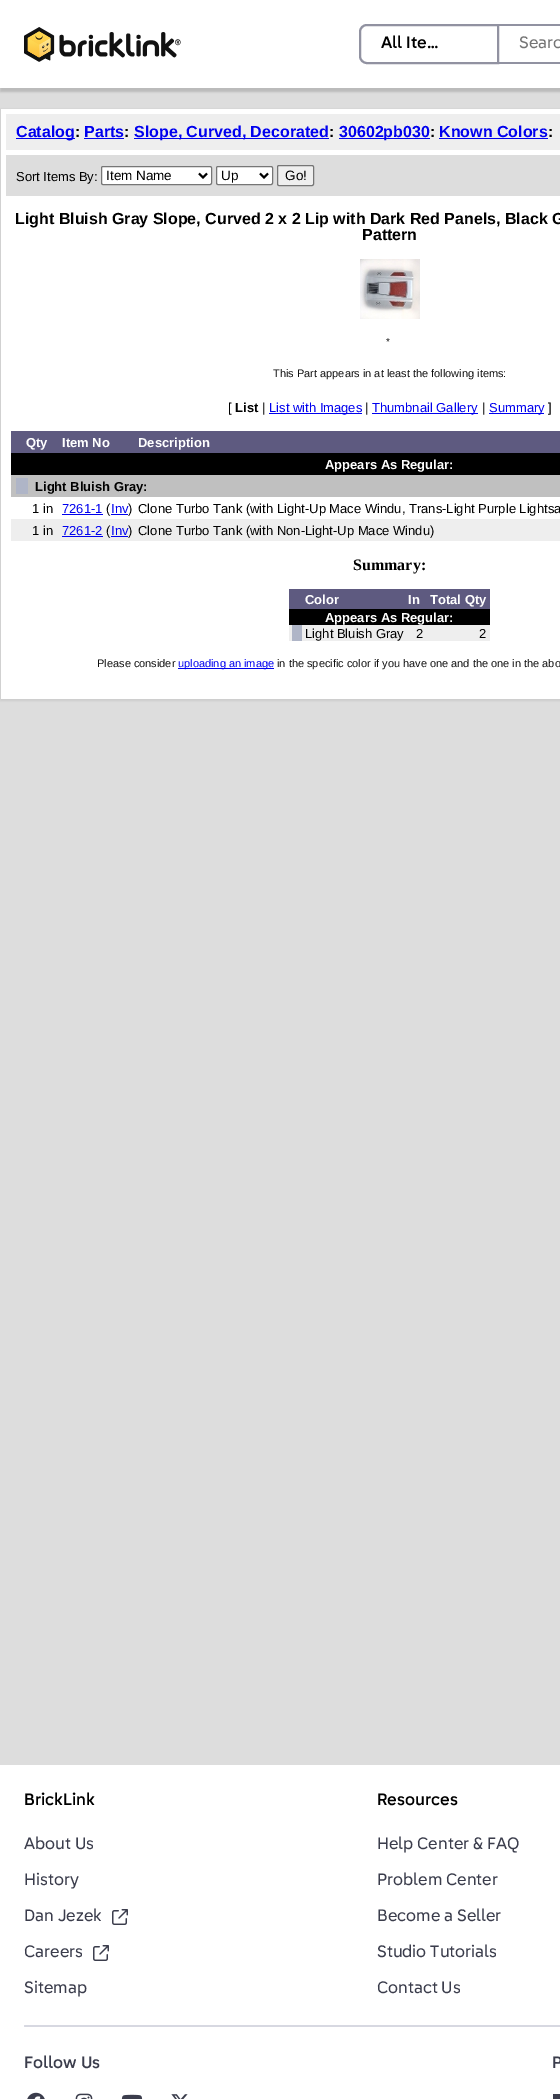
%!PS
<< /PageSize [560 2099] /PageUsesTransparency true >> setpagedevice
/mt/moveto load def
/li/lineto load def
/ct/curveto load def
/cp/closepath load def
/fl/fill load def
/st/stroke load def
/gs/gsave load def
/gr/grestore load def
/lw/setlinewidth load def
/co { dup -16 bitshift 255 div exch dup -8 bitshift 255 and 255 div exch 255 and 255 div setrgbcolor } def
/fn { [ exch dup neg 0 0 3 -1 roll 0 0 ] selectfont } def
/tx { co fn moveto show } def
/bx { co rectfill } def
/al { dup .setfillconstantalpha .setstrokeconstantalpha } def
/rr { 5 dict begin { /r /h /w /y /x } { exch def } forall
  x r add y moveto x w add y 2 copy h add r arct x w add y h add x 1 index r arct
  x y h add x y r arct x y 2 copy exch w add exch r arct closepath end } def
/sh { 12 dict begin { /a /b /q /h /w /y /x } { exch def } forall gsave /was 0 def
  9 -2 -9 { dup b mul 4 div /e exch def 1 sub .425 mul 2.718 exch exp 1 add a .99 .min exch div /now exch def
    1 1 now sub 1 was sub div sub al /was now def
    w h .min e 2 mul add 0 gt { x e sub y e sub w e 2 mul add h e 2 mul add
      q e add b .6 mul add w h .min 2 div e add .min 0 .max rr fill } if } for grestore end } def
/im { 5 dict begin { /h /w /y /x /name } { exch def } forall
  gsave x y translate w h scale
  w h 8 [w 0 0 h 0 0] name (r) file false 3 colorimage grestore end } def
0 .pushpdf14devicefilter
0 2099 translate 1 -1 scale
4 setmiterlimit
0 0 560 2099 16#DDDDDD bx
16#000000 co
0 4 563 88 0 1 .15 sh
0 0 560 88 16#FFFFFF bx
(media/1.raw) 24 27 157 35 im
497 24 63 2 16#9192A1 bx
497 62 63 2 16#9192A1 bx
16#FFFFFF co
367 25 mt 498 25 li 498 63 li 367 63 li 363 63 360 60 360 56 ct 360 32 li 360 28 363 25 367 25 ct cp gs fl gr
16#9192A1 co
2 lw
st
16#CCCCCC co
0 109 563 592 0 1 1 sh
1 109 559 590 16#FFFFFF bx
6 114 554 36 16#EEEEEE bx
16 138 59 1 16#0000EE bx
84 138 40 1 16#0000EE bx
134 138 195 1 16#0000EE bx
339 138 91 1 16#0000EE bx
439 138 109 1 16#0000EE bx
6 155 554 41 16#DDDDDD bx
16#FFFFFF co
101.5 166.5 110 18 1.5 rr gs fl gr
16#767676 co
1 lw
st
16#000000 co
2 lw
199 173.5 mt 203 177.5 li 207 173.5 li st
16#FFFFFF co
216.5 166.5 56 18 1.5 rr gs fl gr
16#767676 co
1 lw
st
16#000000 co
2 lw
260 173.5 mt 264 177.5 li 268 173.5 li st
16#EFEFEF co
277.5 165.5 36 20 1.5 rr gs fl gr
16#767676 co
1 lw
st
(media/2.raw) 360 259 60 60 im
269 413 93 1 16#0000EE bx
372 413 106 1 16#0000EE bx
489 413 55 1 16#0000EE bx
11 431 549 22 16#5E5A80 bx
11 453 549 22 16#000000 bx
11 475 549 22 16#C0C0C0 bx
16 478 12 16 16#AFB5C7 bx
62 514 41 1 16#0000EE bx
111 514 17 1 16#0000EE bx
11 519 549 22 16#EEEEEE bx
62 536 41 1 16#0000EE bx
111 536 17 1 16#0000EE bx
289 589 201 20 16#5E5A80 bx
289 609 201 16 16#000000 bx
289 625 201 16 16#EEEEEE bx
292 625 10 16 16#AFB5C7 bx
178 668 96 1 16#0000EE bx
0 1765 560 334 16#FFFFFF bx
(media/3.raw) 112 1909 16 16 im
(media/3.raw) 93 1945 16 16 im
16#D7D8E1 co
24 2025 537 2 1 rr fl
(media/4.raw) 27 2092 18 7 im
(media/5.raw) 75 2093 18 6 im
(media/6.raw) 121 2094 22 5 im
(media/7.raw) 171 2094 17 5 im
553 2094 7 5 16#3B3D4C bx
(All Ite…) 381 48 /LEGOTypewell-Medium 16 16#000000 tx
(Searc) 519 48 /LEGOTypewell-Regular 16 16#757575 tx
(Catalog) 16 137 /LiberationSans-Bold 16 16#0000EE tx
(:) 75 137 /LiberationSans-Bold 16 16#000000 tx
(Parts) 84 137 /LiberationSans-Bold 16 16#0000EE tx
(:) 124 137 /LiberationSans-Bold 16 16#000000 tx
(Slope, Curved, Decorated) 134 137 /LiberationSans-Bold 16 16#0000EE tx
(:) 329 137 /LiberationSans-Bold 16 16#000000 tx
(30602pb030) 339 137 /LiberationSans-Bold 16 16#0000EE tx
(:) 430 137 /LiberationSans-Bold 16 16#000000 tx
(Known Colors) 439 137 /LiberationSans-Bold 16 16#0000EE tx
(:) 548 137 /LiberationSans-Bold 16 16#000000 tx
(Sort Items By:) 16 181 /LiberationSans-Regular 13 16#000000 tx
(Item Name) 106 180 /LiberationSans-Regular 13.5 16#000000 tx
(Up) 221 180 /LiberationSans-Regular 13.5 16#000000 tx
(Go!) 285 180 /LiberationSans-Regular 13.5 16#000000 tx
(Light Bluish Gray Slope, Curved 2 x 2 Lip with Dark Red Panels, Black G) 15 224 /LiberationSans-Bold 16 16#000000 tx
(Pattern) 362 240 /LiberationSans-Bold 16 16#000000 tx
(*) 386 345 /LiberationSans-Regular 10 16#111111 tx
(This Part appears in at least the following items:) 273 377 /LiberationSans-Regular 11 16#111111 tx
([) 228 412 /LiberationSans-Regular 13 16#000000 tx
(List) 235 412 /LiberationSans-Bold 13 16#000000 tx
(|) 262 412 /LiberationSans-Regular 13 16#000000 tx
(List with Images) 269 412 /LiberationSans-Regular 13 16#0000EE tx
(|) 365 412 /LiberationSans-Regular 13 16#000000 tx
(Thumbnail Gallery) 372 412 /LiberationSans-Regular 13 16#0000EE tx
(|) 482 412 /LiberationSans-Regular 13 16#000000 tx
(Summary) 489 412 /LiberationSans-Regular 13 16#0000EE tx
(]) 548 412 /LiberationSans-Regular 13 16#000000 tx
(Qty) 26 447 /LiberationSans-Bold 13 16#FFFFFF tx
(Item No) 62 447 /LiberationSans-Bold 13 16#FFFFFF tx
(Description) 138 447 /LiberationSans-Bold 13 16#FFFFFF tx
(Appears As Regular:) 325 469 /LiberationSans-Bold 13 16#FFFFFF tx
(Light Bluish Gray:) 35 491 /LiberationSans-Bold 13 16#000000 tx
(1 in) 32 513 /LiberationSans-Regular 13 16#000000 tx
(7261-1) 62 513 /LiberationSans-Regular 13 16#0000EE tx
(\() 106 513 /LiberationSans-Regular 13 16#000000 tx
(Inv) 111 513 /LiberationSans-Regular 13 16#0000EE tx
(\)) 128 513 /LiberationSans-Regular 13 16#000000 tx
(Clone Turbo Tank \(with Light-Up Mace Windu, Trans-Light Purple Lightsa) 138 513 /LiberationSans-Regular 13 16#000000 tx
(1 in) 32 535 /LiberationSans-Regular 13 16#000000 tx
(7261-2) 62 535 /LiberationSans-Regular 13 16#0000EE tx
(\() 106 535 /LiberationSans-Regular 13 16#000000 tx
(Inv) 111 535 /LiberationSans-Regular 13 16#0000EE tx
(\)) 128 535 /LiberationSans-Regular 13 16#000000 tx
(Clone Turbo Tank \(with Non-Light-Up Mace Windu\)) 138 535 /LiberationSans-Regular 13 16#000000 tx
(Summary:) 353 570 /LiberationSerif-Bold 16 16#000000 tx
(Color) 305 604 /LiberationSans-Bold 13 16#FFFFFF tx
(In) 408 604 /LiberationSans-Bold 13 16#FFFFFF tx
(Total Qty) 430 604 /LiberationSans-Bold 13 16#FFFFFF tx
(Appears As Regular:) 325 622 /LiberationSans-Bold 13 16#FFFFFF tx
(Light Bluish Gray) 305 638 /LiberationSans-Regular 13 16#000000 tx
(2) 416 638 /LiberationSans-Regular 13 16#000000 tx
(2) 479 638 /LiberationSans-Regular 13 16#000000 tx
(Please consider) 97 667 /LiberationSans-Regular 11 16#111111 tx
(uploading an image) 178 667 /LiberationSans-Regular 11 16#0000EE tx
(in the specific color if you have one and the one in the abo) 277 667 /LiberationSans-Regular 11 16#111111 tx
(BrickLink) 24 1805 /LEGOTypewell-Medium 16 16#000000 tx
(About Us) 24 1849 /LEGOTypewell-Regular 16 16#3B3D4C tx
(History) 24 1885 /LEGOTypewell-Regular 16 16#3B3D4C tx
(Dan Jezek) 24 1921 /LEGOTypewell-Regular 16 16#3B3D4C tx
(Careers) 24 1957 /LEGOTypewell-Regular 16 16#3B3D4C tx
(Sitemap) 24 1993 /LEGOTypewell-Regular 16 16#3B3D4C tx
(Resources) 377 1805 /LEGOTypewell-Medium 16 16#000000 tx
(Help Center & FAQ) 377 1849 /LEGOTypewell-Regular 16 16#3B3D4C tx
(Problem Center) 377 1885 /LEGOTypewell-Regular 16 16#3B3D4C tx
(Become a Seller) 377 1921 /LEGOTypewell-Regular 16 16#3B3D4C tx
(Studio Tutorials) 377 1957 /LEGOTypewell-Regular 16 16#3B3D4C tx
(Contact Us) 377 1993 /LEGOTypewell-Regular 16 16#3B3D4C tx
(Follow Us) 24 2068 /LEGOTypewell-Medium 16 16#3B3D4C tx
(P) 552 2068 /LEGOTypewell-Medium 16 16#3B3D4C tx
.poppdf14devicefilter showpage
